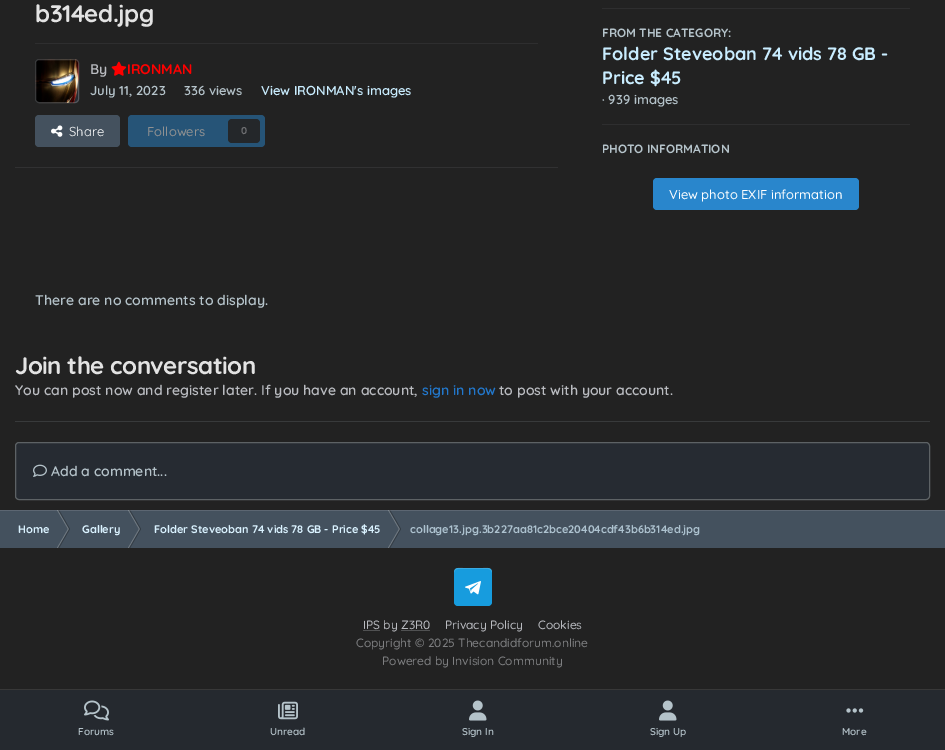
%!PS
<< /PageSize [945 750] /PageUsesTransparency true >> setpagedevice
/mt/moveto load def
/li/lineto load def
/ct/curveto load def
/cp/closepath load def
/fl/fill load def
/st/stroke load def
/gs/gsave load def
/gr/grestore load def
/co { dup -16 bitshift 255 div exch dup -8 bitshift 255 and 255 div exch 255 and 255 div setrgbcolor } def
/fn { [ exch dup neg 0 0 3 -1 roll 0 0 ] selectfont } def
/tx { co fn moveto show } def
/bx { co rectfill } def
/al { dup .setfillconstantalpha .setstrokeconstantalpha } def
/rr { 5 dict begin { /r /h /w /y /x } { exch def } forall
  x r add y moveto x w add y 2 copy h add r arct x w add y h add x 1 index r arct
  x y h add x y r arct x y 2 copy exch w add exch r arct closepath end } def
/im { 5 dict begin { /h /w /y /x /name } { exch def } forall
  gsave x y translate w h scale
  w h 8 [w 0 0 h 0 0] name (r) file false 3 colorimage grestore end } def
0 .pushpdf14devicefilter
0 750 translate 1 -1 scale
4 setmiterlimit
0 0 945 750 16#222222 bx
35 43 503 1 16#2E2E2F bx
16#262B32 co
35 59 44 44 4 rr fl
(media/1.raw) 35 59 44 44 im
0.3 al
16#BABCC1 co
35.5 59.5 43 43 3.5 rr st
1 al
(media/2.raw) 111 61 16 15 im
16#44515E co
35 115 85 32 4 rr fl
(media/3.raw) 51 125 12 12 im
16#265477 co
128 115 137 32 4 rr fl
16#24272A co
228 119 32 24 4 rr fl
15 167 543 1 16#313132 bx
602 8 308 1 16#2E2E2F bx
602 124 308 1 16#2E2E2F bx
16#2986CC co
653 178 206 32 4 rr fl
15 421 915 1 16#383A3B bx
16#262B32 co
15.5 442.5 914 57 3.5 rr gs fl gr
16#5D6265 co
st
(media/4.raw) 33 464 14 13 im
0 510 945 38 16#44515E bx
16#737D86 co
57 510 mt 58 510 li 69 529 li 68 529 li cp fl
0.3 al
16#000000 co
58 510 mt 59 510 li 70 529 li 69 529 li cp fl
1 al
16#737D86 co
128 510 mt 129 510 li 140 529 li 139 529 li cp fl
0.3 al
16#000000 co
129 510 mt 130 510 li 141 529 li 140 529 li cp fl
1 al
16#737D86 co
388 510 mt 389 510 li 400 529 li 399 529 li cp fl
0.3 al
16#000000 co
389 510 mt 390 510 li 401 529 li 400 529 li cp fl
0.2 al
0 510 945 1 16#BABCC1 bx
1 al
16#737D86 co
57 548 mt 58 548 li 69 529 li 68 529 li cp fl
0.3 al
16#000000 co
58 548 mt 59 548 li 70 529 li 69 529 li cp fl
1 al
16#737D86 co
128 548 mt 129 548 li 140 529 li 139 529 li cp fl
0.3 al
16#000000 co
129 548 mt 130 548 li 141 529 li 140 529 li cp fl
1 al
16#737D86 co
388 548 mt 389 548 li 400 529 li 399 529 li cp fl
0.3 al
16#000000 co
389 548 mt 390 548 li 401 529 li 400 529 li cp fl
1 al
16#179CDE co
454 568 38 38 4 rr fl
0.15 al
16#FFFFFF co
458 569 mt 456 569 454 571 454 573 ct 454 567 458.5 568 463 568 ct 483 568 li 487.5 568 492 567 492 573 ct 492 571 490 569 488 569 ct cp fl
1 al
(media/5.raw) 465 581 16 14 im
363 630 17 1 16#505152 bx
0 689 945 1 16#383838 bx
0 690 945 60 16#25292F bx
(media/6.raw) 84 700 25 21 im
(media/7.raw) 278 701 20 19 im
(media/8.raw) 469 700 18 21 im
(media/8.raw) 659 700 18 21 im
(media/9.raw) 846 708 18 5 im
/Quicksand-Bold 24 fn
16#E3E3E3 co
35 22 mt -.5 0 (b314ed.jpg) ashow
(By) 90 74 /Quicksand-SemiBold 14 16#BABCC1 tx
(IRONMAN) 127 74 /Quicksand-Bold 14 16#FF0000 tx
(July 11, 2023) 90 95 /Quicksand-SemiBold 13 16#B5C3CA tx
(336 views) 184 95 /Quicksand-SemiBold 13 16#B5C3CA tx
(View IRONMAN's images) 261 95 /Quicksand-SemiBold 13 16#C9EDFF tx
(Share) 69 136 /Quicksand-Regular 13 16#FFFFFF tx
(Followers) 147 136 /Quicksand-Medium 13 16#919191 tx
(0) 241 134 /Quicksand-Bold 10 16#6E6F72 tx
(FROM THE CATEGORY:) 602 37 /Quicksand-Bold 12 16#B5C3CA tx
(Folder Steveoban 74 vids 78 GB -) 602 60 /Quicksand-Bold 18 16#C9EDFF tx
(Price $45) 602 84 /Quicksand-Bold 18 16#C9EDFF tx
(· 939 images) 602 104 /Quicksand-SemiBold 13 16#B5C3CA tx
(PHOTO INFORMATION) 602 153 /Quicksand-Bold 12 16#B5C3CA tx
(View photo EXIF information) 669 199 /Quicksand-Medium 13 16#FFFFFF tx
(There are no comments to display.) 35 305 /Quicksand-SemiBold 14 16#B5C3CA tx
/Quicksand-Bold 24 fn
16#E3E3E3 co
15 374 mt -.5 0 (Join the conversation) ashow
(You can post now and register later. If you have an account,) 15 395 /Quicksand-SemiBold 14 16#BABCC1 tx
(sign in now) 422 395 /Quicksand-SemiBold 14 16#2278CD tx
(to post with your account.) 499 395 /Quicksand-SemiBold 14 16#BABCC1 tx
(Add a comment...) 51 476 /Quicksand-SemiBold 14 16#B5C3CA tx
(Home) 18 533 /Quicksand-Bold 11 16#DAF2FF tx
(Gallery) 82 533 /Quicksand-Bold 11 16#DAF2FF tx
(Folder Steveoban 74 vids 78 GB - Price $45) 154 533 /Quicksand-Bold 11 16#DAF2FF tx
(collage13.jpg.3b227aa81c2bce20404cdf43b6b314ed.jpg) 410 533 /Quicksand-Bold 11 16#ADC2CF tx
(IPS by Z3R0) 363 629 /Quicksand-Medium 12 16#BABCC1 tx
401 630 29 1 16#505152 bx
(Privacy Policy) 445 629 /Quicksand-Medium 12 16#BABCC1 tx
(Cookies) 538 629 /Quicksand-Medium 12 16#BABCC1 tx
(Copyright © 2025 Thecandidforum.online) 356 647 /Quicksand-Medium 12 16#7E7F81 tx
(Powered by Invision Community) 382 665 /Quicksand-Medium 12 16#7E7F81 tx
(Forums) 78 735 /Quicksand-SemiBold 10 16#B5C3CA tx
(Unread) 270 735 /Quicksand-SemiBold 10 16#B5C3CA tx
(Sign In) 462 735 /Quicksand-SemiBold 10 16#B5C3CA tx
(Sign Up) 650 735 /Quicksand-SemiBold 10 16#B5C3CA tx
(More) 842 735 /Quicksand-SemiBold 10 16#B5C3CA tx
.poppdf14devicefilter showpage
